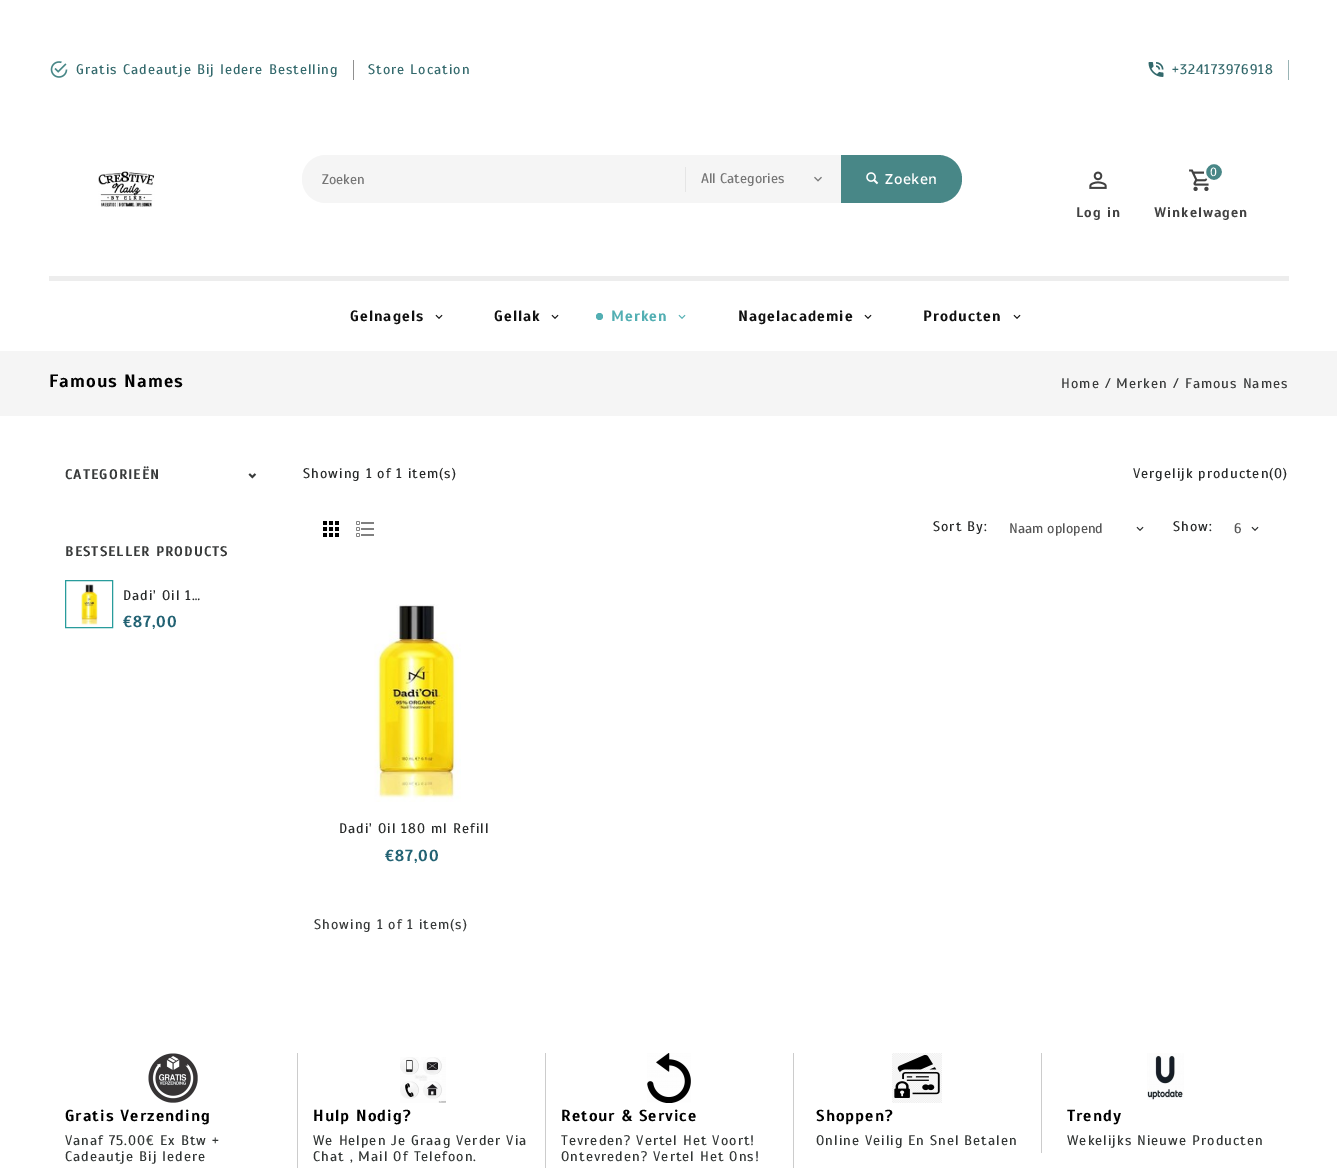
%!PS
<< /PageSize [1337 1168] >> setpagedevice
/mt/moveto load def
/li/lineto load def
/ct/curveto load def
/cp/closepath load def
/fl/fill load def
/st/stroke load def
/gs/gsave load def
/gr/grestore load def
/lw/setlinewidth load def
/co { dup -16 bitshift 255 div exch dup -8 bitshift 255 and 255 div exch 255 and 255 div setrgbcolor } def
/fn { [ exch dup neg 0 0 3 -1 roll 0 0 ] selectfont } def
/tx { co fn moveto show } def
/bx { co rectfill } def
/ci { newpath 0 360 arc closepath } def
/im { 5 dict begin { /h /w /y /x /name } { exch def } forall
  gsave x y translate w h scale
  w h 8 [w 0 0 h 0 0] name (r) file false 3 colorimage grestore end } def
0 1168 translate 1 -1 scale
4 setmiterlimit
0 0 1337 1168 16#FFFFFF bx
(media/1.raw) 50 61 18 17 im
353 60 1 20 16#909090 bx
(media/2.raw) 1148 62 16 15 im
1288 60 1 20 16#99B4B5 bx
49 276 1240 5 16#EDEDED bx
(media/3.raw) 98 171 57 36 im
16#F5F5F5 co
326 155 mt 685 155 li 685 203 li 326 203 li 312.5 203 302 192.5 302 179 ct 302 165.5 312.5 155 326 155 ct cp fl
685 155 156 48 16#F5F5F5 bx
685 167 1 25 16#E5E5E5 bx
(media/4.raw) 814 176 8 6 im
16#488787 co
841 155 mt 938 155 li 951.5 155 962 165.5 962 179 ct 962 192.5 951.5 203 938 203 ct 841 203 li cp fl
(media/5.raw) 866 172 13 13 im
(media/6.raw) 1189 169 20 23 im
1214 172 9 ci gs fl gr
16#FFFFFF co
2 lw
st
(media/7.raw) 1089 171 18 18 im
(media/8.raw) 435 314 8 5 im
(media/8.raw) 551 314 8 5 im
16#53AFB3 co
599.5 316.5 3.5 ci fl
(media/9.raw) 678 314 8 5 im
(media/8.raw) 864 314 8 5 im
(media/8.raw) 1013 314 8 5 im
0 351 1337 65 16#F5F5F5 bx
(media/10.raw) 248 473 9 6 im
16#289C9C co
1 lw
65.5 580.5 47 47 rectstroke
(media/11.raw) 81 584 17 41 im
(media/12.raw) 323 521 16 16 im
(media/13.raw) 356 521 18 16 im
(media/14.raw) 1136 526 8 5 im
(media/14.raw) 1251 526 8 5 im
(media/15.raw) 374 604 87 198 im
297 1053 1 115 16#CCCCCC bx
(media/16.raw) 148 1053 50 50 im
545 1053 1 115 16#CCCCCC bx
(media/17.raw) 400 1057 46 46 im
793 1053 1 115 16#CCCCCC bx
(media/18.raw) 647 1053 44 50 im
1041 1053 1 100 16#CCCCCC bx
(media/19.raw) 892 1053 50 50 im
(media/20.raw) 1147 1053 37 47 im
/Scada-Regular 14 fn
16#33696C co
76 74 mt 1 0 (Gratis Cadeautje Bij Iedere Bestelling) ashow
368 74 mt 1 0 (Store Location) ashow
1172 74 mt 1 0 (+324173976918) ashow
(Zoeken) 322 184 /Scada-Regular 14 16#757575 tx
(All Categories) 701 183 /Scada-Regular 14 16#757575 tx
/OpenSans-SemiBold 14 fn
16#FFFFFF co
885 184 mt .5 0 (Zoeken) ashow
/Scada-Regular 12 fn
1210 176 mt 1 0 (0) ashow
/Scada-Bold 14 fn
16#414141 co
1154 217 mt 1 0 (Winkelwagen) ashow
1076 217 mt 1 0 (Log in) ashow
/Scada-Bold 15 fn
16#111111 co
350 321 mt 1 0 (Gelnagels) ashow
494 321 mt 1 0 (Gellak) ashow
16#53AFB3 co
611 321 mt 1 0 (Merken) ashow
16#111111 co
738 321 mt 1 0 (Nagelacademie) ashow
923 321 mt 1 0 (Producten) ashow
/Scada-Bold 18 fn
16#000000 co
49 387 mt 1 0 (Famous Names) ashow
/Scada-Regular 14 fn
16#383A3A co
1061 388 mt 1 0 (Home / Merken / Famous Names) ashow
/Scada-Bold 14 fn
65 479 mt 1 0 (CATEGORIEËN) ashow
65 556 mt 1 0 (BESTSELLER PRODUCTS) ashow
/Scada-Regular 14 fn
16#272929 co
123 600 mt 1 0 (Dadi' Oil 1…) ashow
/Scada-Bold 16 fn
16#226273 co
123 627 mt 1 0 (€87,00) ashow
/Scada-Regular 14 fn
16#272929 co
303 478 mt 1 0 (Showing 1 of 1 item\(s\)) ashow
1133 478 mt 1 0 (Vergelijk producten\(0\)) ashow
933 531 mt 1 0 (Sort By:) ashow
(Naam oplopend) 1009 533 /Scada-Regular 14 16#555555 tx
16#272929 co
1173 531 mt 1 0 (Show:) ashow
(6) 1234 533 /Scada-Regular 14 16#555555 tx
16#272929 co
339 833 mt 1 0 (Dadi' Oil 180 ml Refill) ashow
/Scada-Bold 16 fn
16#226273 co
385 861 mt 1 0 (€87,00) ashow
/Scada-Regular 14 fn
16#383A3A co
314 929 mt 1 0 (Showing 1 of 1 item\(s\)) ashow
/Scada-Bold 16 fn
16#000000 co
65 1121 mt 1 0 (Gratis Verzending) ashow
/Scada-Regular 14 fn
16#313534 co
65 1145 mt 1 0 (Vanaf 75.00€ Ex Btw +) ashow
65 1161 mt 1 0 (Cadeautje Bij Iedere) ashow
/Scada-Bold 16 fn
16#000000 co
313 1121 mt 1 0 (Hulp Nodig?) ashow
/Scada-Regular 14 fn
16#313534 co
313 1145 mt 1 0 (We Helpen Je Graag Verder Via) ashow
313 1161 mt 1 0 (Chat , Mail Of Telefoon.) ashow
/Scada-Bold 16 fn
16#000000 co
561 1121 mt 1 0 (Retour & Service) ashow
/Scada-Regular 14 fn
16#313534 co
561 1145 mt 1 0 (Tevreden? Vertel Het Voort!) ashow
561 1161 mt 1 0 (Ontevreden? Vertel Het Ons!) ashow
/Scada-Bold 16 fn
16#000000 co
816 1121 mt 1 0 (Shoppen?) ashow
/Scada-Regular 14 fn
16#313534 co
816 1145 mt 1 0 (Online Veilig En Snel Betalen) ashow
/Scada-Bold 16 fn
16#000000 co
1067 1121 mt 1 0 (Trendy) ashow
/Scada-Regular 14 fn
16#313534 co
1067 1145 mt 1 0 (Wekelijks Nieuwe Producten) ashow
showpage
